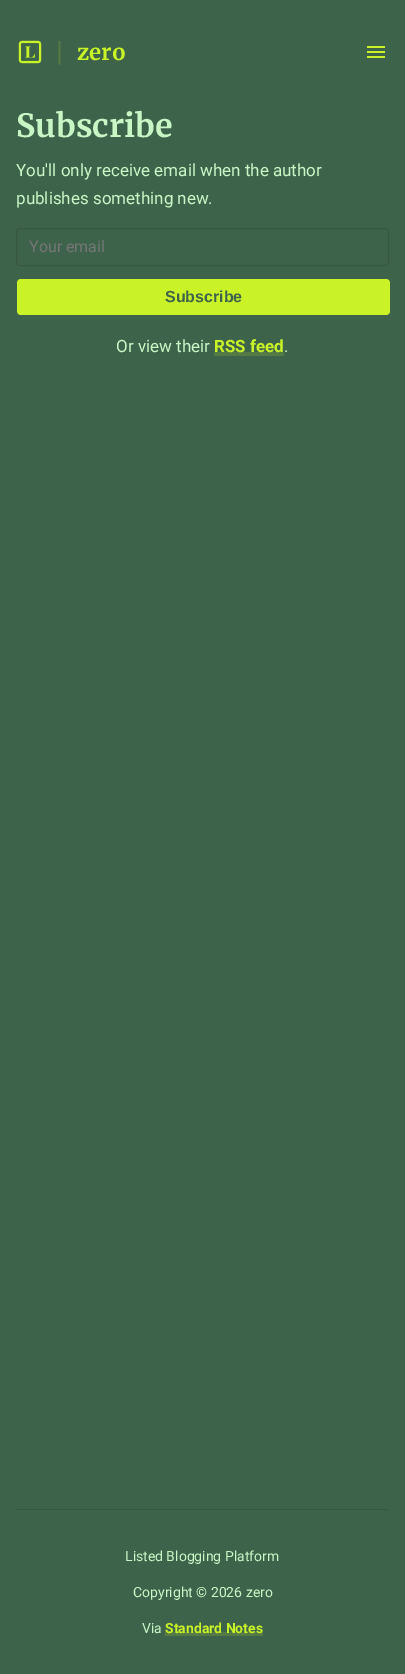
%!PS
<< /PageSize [405 1674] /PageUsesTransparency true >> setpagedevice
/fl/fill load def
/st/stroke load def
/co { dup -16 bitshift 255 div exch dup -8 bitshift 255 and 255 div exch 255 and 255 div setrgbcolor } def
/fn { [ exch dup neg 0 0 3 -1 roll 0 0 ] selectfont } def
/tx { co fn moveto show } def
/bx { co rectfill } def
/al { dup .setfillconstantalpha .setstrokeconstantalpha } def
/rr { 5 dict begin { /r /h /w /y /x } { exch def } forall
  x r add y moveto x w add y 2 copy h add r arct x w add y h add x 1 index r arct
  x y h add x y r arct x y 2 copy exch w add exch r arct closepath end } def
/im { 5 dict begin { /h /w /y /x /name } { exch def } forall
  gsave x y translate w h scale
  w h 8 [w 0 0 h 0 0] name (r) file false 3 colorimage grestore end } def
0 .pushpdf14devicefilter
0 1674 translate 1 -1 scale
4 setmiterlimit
0 0 405 1674 16#3E634B bx
(media/1.raw) 18 40 24 24 im
(media/2.raw) 367 46 18 12 im
16#385743 co
16.5 228.5 372 37 3.5 rr st
16#C9F227 co
17 279 373 36 4 rr fl
16 1509 373 1 16#385743 bx
(|) 56 61 /Roboto-Regular 28 16#547A45 tx
(zero) 77 60 /Merriweather-Bold 22 16#C9F227 tx
(Subscribe) 16 137 /Merriweather-Bold 32 16#C8F7C5 tx
(You'll only receive email when the author) 16 176 /Roboto-Regular 17 16#C8F7C5 tx
(publishes something new.) 16 204 /Roboto-Regular 17 16#C8F7C5 tx
(Your email) 29 252 /Roboto-Regular 16 16#757575 tx
(Subscribe) 165 302 /LiberationSans-Bold 16 16#3E634B tx
(Or view their) 116 352 /Roboto-Regular 17 16#C8F7C5 tx
(RSS feed) 214 352 /Roboto-Bold 17 16#C9F227 tx
0.16 al
214 352 70 4 16#C9F227 bx
1 al
(.) 284 352 /Roboto-Regular 17 16#C8F7C5 tx
(Listed Blogging Platform) 125 1561 /Roboto-Regular 14 16#C8F7C5 tx
(Copyright © 2026 zero) 133 1597 /Roboto-Regular 14 16#C8F7C5 tx
(Via) 142 1633 /Roboto-Regular 14 16#C8F7C5 tx
(Standard Notes) 165 1633 /Roboto-Bold 14 16#C9F227 tx
0.16 al
165 1632 98 4 16#C9F227 bx
.poppdf14devicefilter showpage
